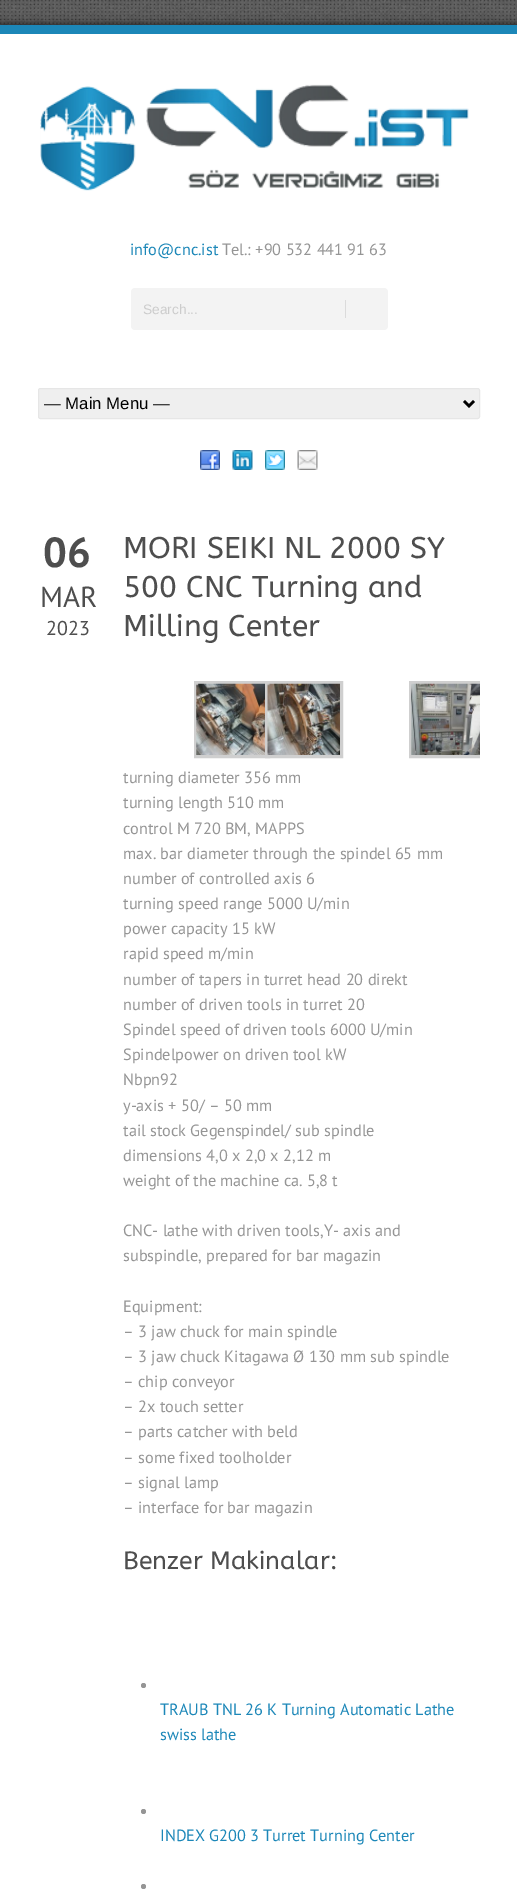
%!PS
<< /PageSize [517 1901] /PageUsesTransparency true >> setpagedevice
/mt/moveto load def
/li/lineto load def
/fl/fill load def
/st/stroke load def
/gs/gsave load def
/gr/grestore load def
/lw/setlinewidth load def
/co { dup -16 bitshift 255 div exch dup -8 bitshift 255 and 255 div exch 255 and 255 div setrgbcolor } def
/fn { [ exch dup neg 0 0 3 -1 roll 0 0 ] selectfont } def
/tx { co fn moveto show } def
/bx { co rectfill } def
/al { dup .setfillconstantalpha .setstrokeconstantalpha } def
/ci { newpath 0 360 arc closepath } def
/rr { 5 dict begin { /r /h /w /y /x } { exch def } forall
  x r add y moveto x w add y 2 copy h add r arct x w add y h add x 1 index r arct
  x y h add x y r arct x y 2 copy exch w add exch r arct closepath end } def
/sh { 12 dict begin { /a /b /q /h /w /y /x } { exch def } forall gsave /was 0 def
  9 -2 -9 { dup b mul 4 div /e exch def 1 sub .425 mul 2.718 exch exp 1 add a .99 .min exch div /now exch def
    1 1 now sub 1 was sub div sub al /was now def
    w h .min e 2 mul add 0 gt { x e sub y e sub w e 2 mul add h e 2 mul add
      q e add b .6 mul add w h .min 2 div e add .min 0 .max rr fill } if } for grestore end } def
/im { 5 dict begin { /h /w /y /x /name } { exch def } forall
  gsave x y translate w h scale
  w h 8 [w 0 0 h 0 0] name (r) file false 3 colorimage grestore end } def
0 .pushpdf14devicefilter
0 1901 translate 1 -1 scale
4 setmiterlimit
0 0 517 1901 16#FFFFFF bx
(media/1.raw) 0 0 517 25 im
16#000000 co
0 25 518 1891 0 5 .8 sh
0 25 517 9 16#1C87B8 bx
0 34 517 1867 16#FFFFFF bx
(media/2.raw) 40 84 429 107 im
16#F3F3F3 co
131 288 257 42 4 rr fl
345 300 1 18 16#DBDBDB bx
16#EFEFEF co
38.5 388.5 441 30 2 rr gs fl gr
16#E6E6E6 co
st
16#000000 co
2.5 lw
464 401 mt 469 406 li 474 401 li st
(media/3.raw) 200 450 20 20 im
(media/4.raw) 232 450 21 20 im
(media/5.raw) 265 450 20 20 im
(media/6.raw) 297 450 21 20 im
16#CFCFCF co
3 lw
195.5 682.5 73 74 rectstroke
(media/7.raw) 196 683 69 72 im
266.5 682.5 75 74 rectstroke
(media/8.raw) 267 683 73 72 im
gs
123 530 357 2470 rectclip
410.5 682.5 73 74 rectstroke
gr
(media/9.raw) 411 683 69 72 im
16#959595 co
143.5 1685.5 2.5 ci fl
143.5 1811.5 2.5 ci fl
143.5 1886.5 2.5 ci fl
(info@cnc.ist) 130 255 /PTSans-Regular 16.25 16#1C87B8 tx
(Tel.: +90 532 441 91 63) 222 255 /PTSans-Regular 16.25 16#959595 tx
(Search...) 143 314 /LiberationSans-Regular 13.75 16#CCCCCC tx
(— Main Menu —) 44 409 /LiberationSans-Regular 16.75 16#000000 tx
(06) 43 567 /PTSans-Bold 42 16#4E4E4E tx
(MAR) 40 607 /PTSans-Regular 29 16#4E4E4E tx
(2023) 46 635 /PTSans-Regular 20 16#4E4E4E tx
(MORI SEIKI NL 2000 SY) 123 558 /ABeeZee-Regular 30 16#4E4E4E tx
(500 CNC Turning and) 123 597 /ABeeZee-Regular 30 16#4E4E4E tx
(Milling Center) 123 636 /ABeeZee-Regular 30 16#4E4E4E tx
(turning diameter 356 mm) 123 783 /PTSans-Regular 16.25 16#959595 tx
(turning length 510 mm) 123 808 /PTSans-Regular 16.25 16#959595 tx
(control M 720 BM, MAPPS) 123 834 /PTSans-Regular 16.25 16#959595 tx
(max. bar diameter through the spindel 65 mm) 123 859 /PTSans-Regular 16.25 16#959595 tx
(number of controlled axis 6) 123 884 /PTSans-Regular 16.25 16#959595 tx
(turning speed range 5000 U/min) 123 909 /PTSans-Regular 16.25 16#959595 tx
(power capacity 15 kW) 123 934 /PTSans-Regular 16.25 16#959595 tx
(rapid speed m/min) 123 959 /PTSans-Regular 16.25 16#959595 tx
(number of tapers in turret head 20 direkt) 123 985 /PTSans-Regular 16.25 16#959595 tx
(number of driven tools in turret 20) 123 1010 /PTSans-Regular 16.25 16#959595 tx
(Spindel speed of driven tools 6000 U/min) 123 1035 /PTSans-Regular 16.25 16#959595 tx
(Spindelpower on driven tool kW) 123 1060 /PTSans-Regular 16.25 16#959595 tx
(Nbpn92) 123 1085 /PTSans-Regular 16.25 16#959595 tx
(y-axis + 50/ – 50 mm) 123 1111 /PTSans-Regular 16.25 16#959595 tx
(tail stock Gegenspindel/ sub spindle) 123 1136 /PTSans-Regular 16.25 16#959595 tx
(dimensions 4,0 x 2,0 x 2,12 m) 123 1161 /PTSans-Regular 16.25 16#959595 tx
(weight of the machine ca. 5,8 t) 123 1186 /PTSans-Regular 16.25 16#959595 tx
(CNC- lathe with driven tools,Y- axis and) 123 1236 /PTSans-Regular 16.25 16#959595 tx
(subspindle, prepared for bar magazin) 123 1261 /PTSans-Regular 16.25 16#959595 tx
(Equipment:) 123 1312 /PTSans-Regular 16.25 16#959595 tx
(– 3 jaw chuck for main spindle) 123 1337 /PTSans-Regular 16.25 16#959595 tx
(– 3 jaw chuck Kitagawa Ø 130 mm sub spindle) 123 1362 /PTSans-Regular 16.25 16#959595 tx
(– chip conveyor) 123 1387 /PTSans-Regular 16.25 16#959595 tx
(– 2x touch setter) 123 1412 /PTSans-Regular 16.25 16#959595 tx
(– parts catcher with beld) 123 1437 /PTSans-Regular 16.25 16#959595 tx
(– some fixed toolholder) 123 1463 /PTSans-Regular 16.25 16#959595 tx
(– signal lamp) 123 1488 /PTSans-Regular 16.25 16#959595 tx
(– interface for bar magazin) 123 1513 /PTSans-Regular 16.25 16#959595 tx
(Benzer Makinalar:) 123 1569 /ABeeZee-Regular 25 16#4E4E4E tx
(TRAUB TNL 26 K Turning Automatic Lathe) 160 1715 /PTSans-Regular 16.25 16#1C87B8 tx
(swiss lathe) 160 1740 /PTSans-Regular 16.25 16#1C87B8 tx
(INDEX G200 3 Turret Turning Center) 160 1841 /PTSans-Regular 16.25 16#1C87B8 tx
.poppdf14devicefilter showpage
